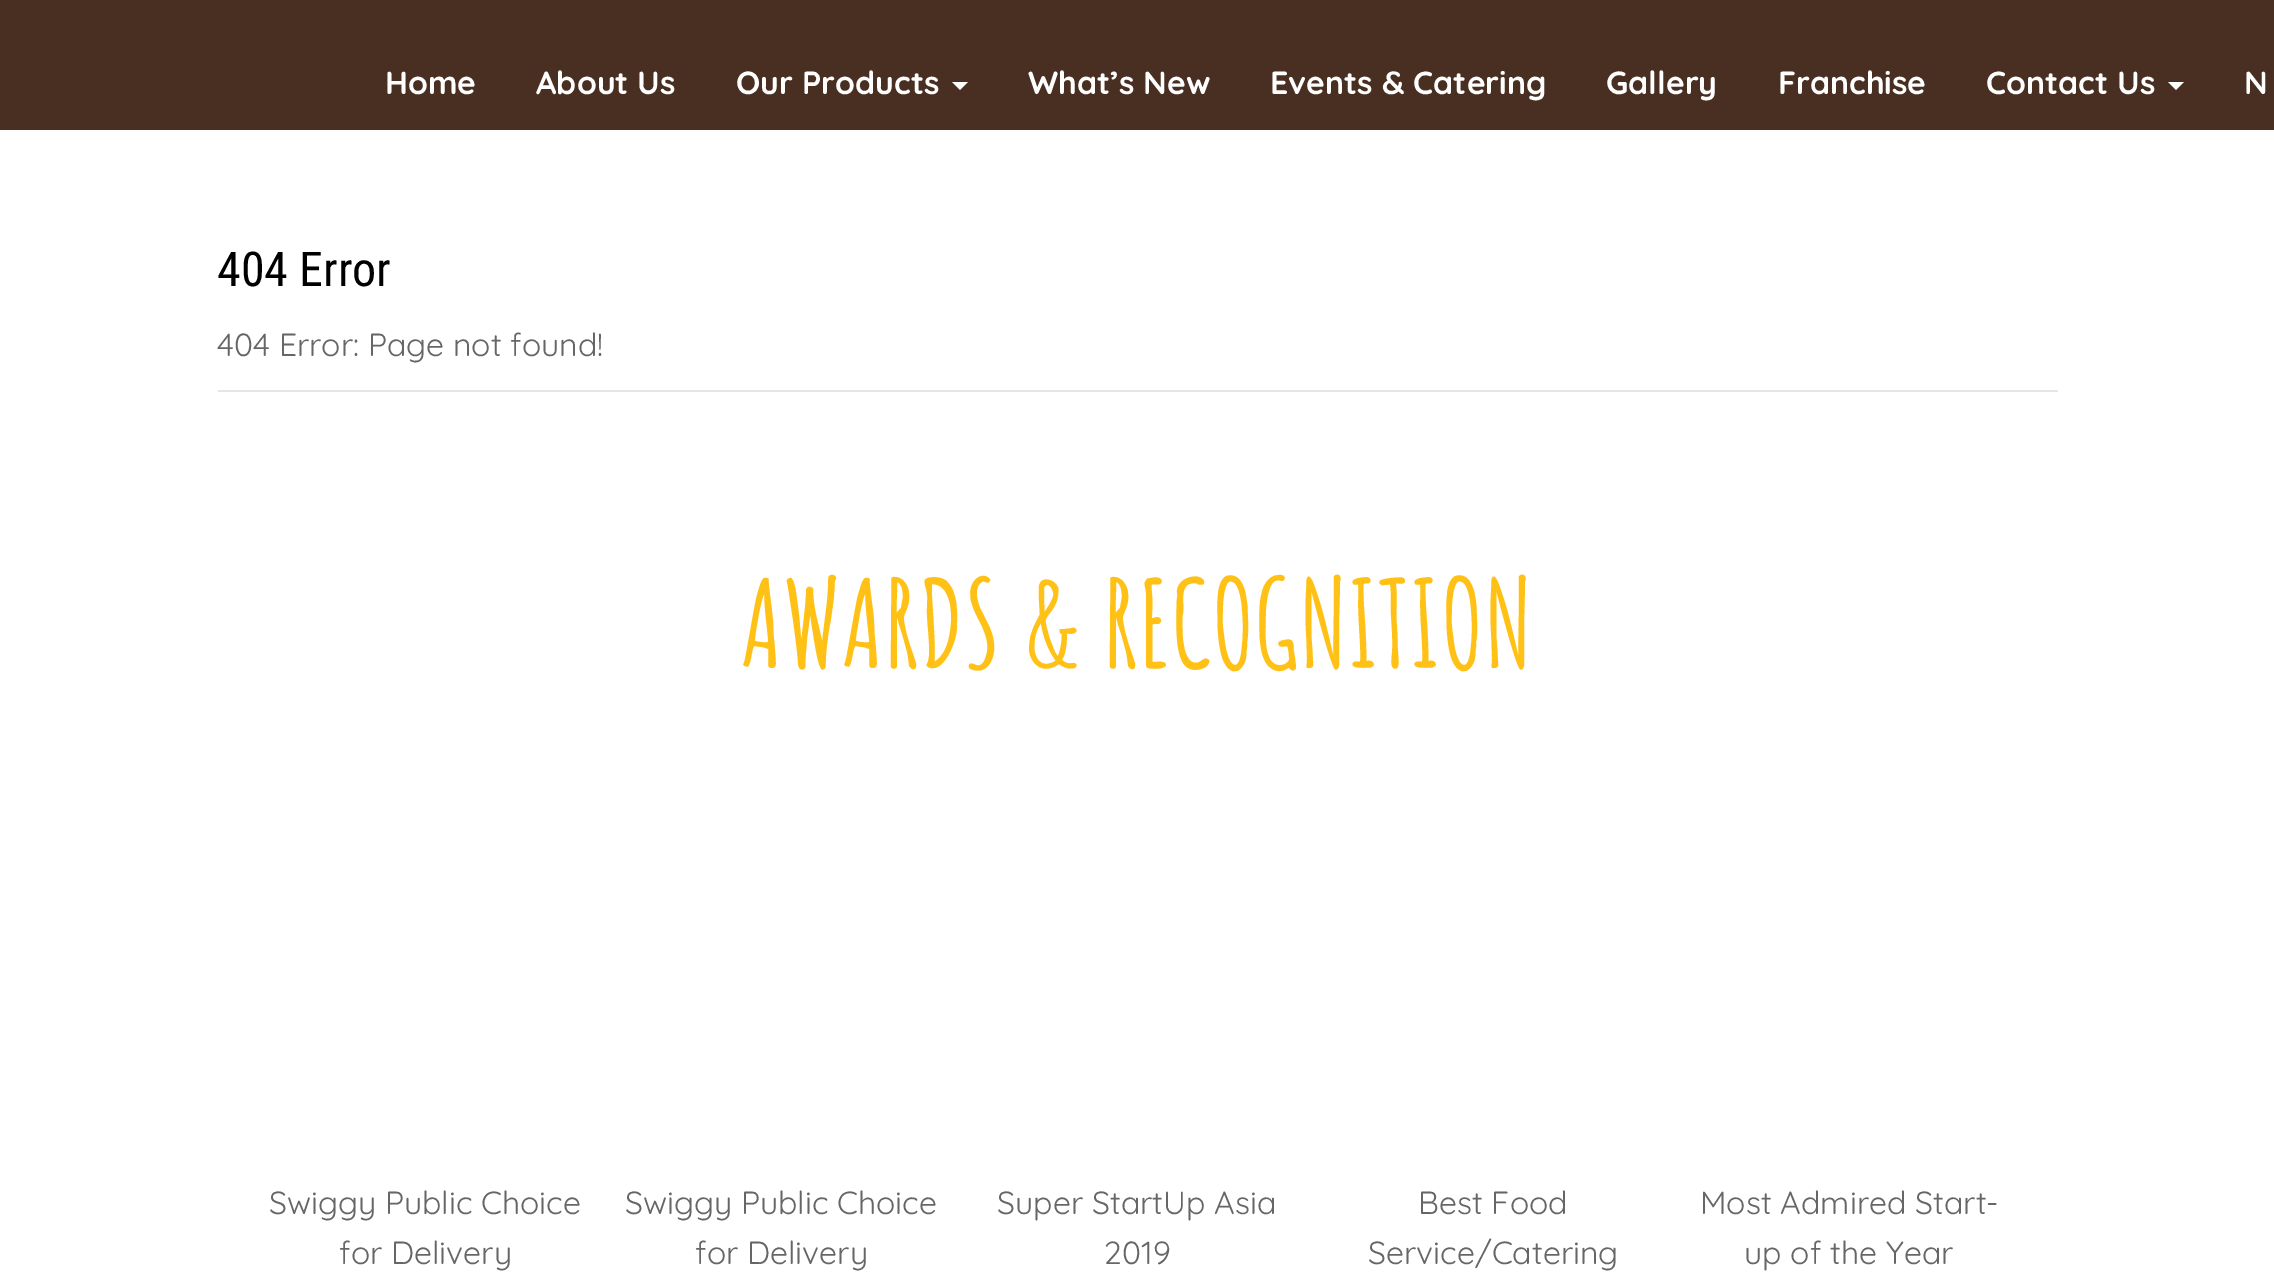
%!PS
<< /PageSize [2274 1287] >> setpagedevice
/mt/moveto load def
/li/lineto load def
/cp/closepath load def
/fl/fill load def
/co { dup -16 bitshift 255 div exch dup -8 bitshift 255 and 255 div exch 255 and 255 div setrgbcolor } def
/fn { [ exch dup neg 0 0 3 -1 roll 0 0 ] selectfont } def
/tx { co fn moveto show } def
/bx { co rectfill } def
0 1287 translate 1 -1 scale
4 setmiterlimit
0 0 2274 1287 16#FFFFFF bx
0 0 2274 130 16#492F22 bx
16#FFFFFF co
952 82 mt 968 82 li 960 90 li cp fl
2168 82 mt 2184 82 li 2176 90 li cp fl
218 390 1840 2 16#E7E5E5 bx
(Home) 385 94 /Quicksand-Bold 32 16#FFFFFF tx
(About Us) 536 94 /Quicksand-Bold 32 16#FFFFFF tx
(Our Products) 736 94 /Quicksand-Bold 32 16#FFFFFF tx
(What’s New) 1028 94 /Quicksand-Bold 32 16#FFFFFF tx
(Events & Catering) 1270 94 /Quicksand-Bold 32 16#FFFFFF tx
(Gallery) 1606 94 /Quicksand-Bold 32 16#FFFFFF tx
(Franchise) 1778 94 /Quicksand-Bold 32 16#FFFFFF tx
(Contact Us) 1986 94 /Quicksand-Bold 32 16#FFFFFF tx
(N) 2244 94 /Quicksand-Bold 32 16#FFFFFF tx
(404 Error) 217 286 /RobotoCondensed-Regular 48 16#000000 tx
(404 Error: Page not found!) 217 356 /Quicksand-Regular 32 16#666666 tx
(AWARDS & RECOGNITION) 741 668 /AmaticSC-Bold 120 16#FFC116 tx
(Swiggy Public Choice) 269 1214 /Quicksand-Regular 32 16#666666 tx
(for Delivery) 339 1264 /Quicksand-Regular 32 16#666666 tx
(Swiggy Public Choice) 625 1214 /Quicksand-Regular 32 16#666666 tx
(for Delivery) 695 1264 /Quicksand-Regular 32 16#666666 tx
(Super StartUp Asia) 997 1214 /Quicksand-Regular 32 16#666666 tx
(2019) 1104 1264 /Quicksand-Regular 32 16#666666 tx
(Best Food) 1418 1214 /Quicksand-Regular 32 16#666666 tx
(Service/Catering) 1368 1264 /Quicksand-Regular 32 16#666666 tx
(Most Admired Start-) 1700 1214 /Quicksand-Regular 32 16#666666 tx
(up of the Year) 1744 1264 /Quicksand-Regular 32 16#666666 tx
showpage
